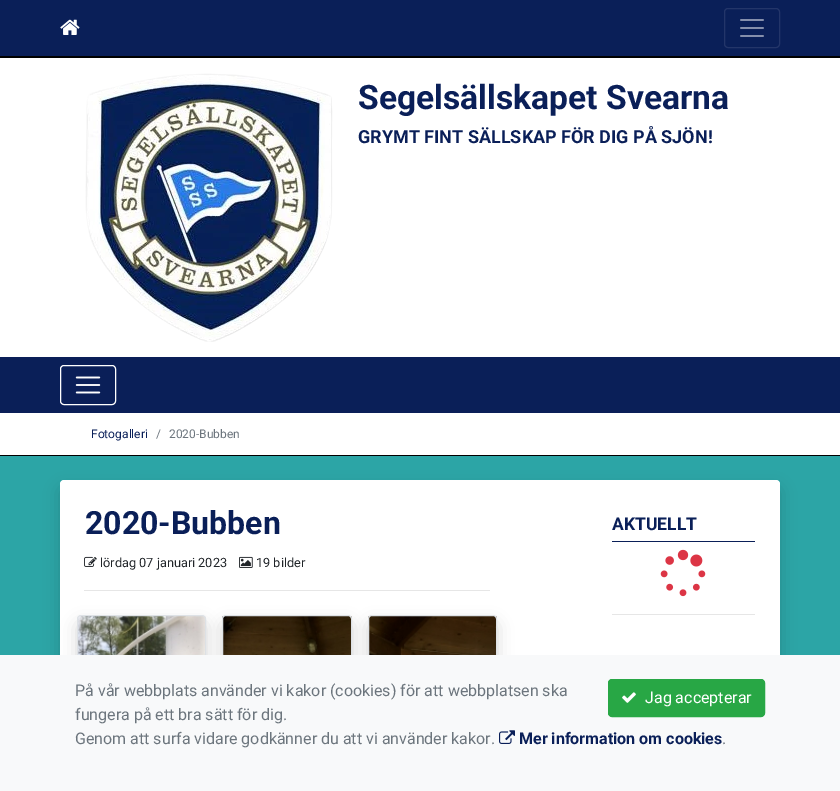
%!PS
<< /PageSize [840 791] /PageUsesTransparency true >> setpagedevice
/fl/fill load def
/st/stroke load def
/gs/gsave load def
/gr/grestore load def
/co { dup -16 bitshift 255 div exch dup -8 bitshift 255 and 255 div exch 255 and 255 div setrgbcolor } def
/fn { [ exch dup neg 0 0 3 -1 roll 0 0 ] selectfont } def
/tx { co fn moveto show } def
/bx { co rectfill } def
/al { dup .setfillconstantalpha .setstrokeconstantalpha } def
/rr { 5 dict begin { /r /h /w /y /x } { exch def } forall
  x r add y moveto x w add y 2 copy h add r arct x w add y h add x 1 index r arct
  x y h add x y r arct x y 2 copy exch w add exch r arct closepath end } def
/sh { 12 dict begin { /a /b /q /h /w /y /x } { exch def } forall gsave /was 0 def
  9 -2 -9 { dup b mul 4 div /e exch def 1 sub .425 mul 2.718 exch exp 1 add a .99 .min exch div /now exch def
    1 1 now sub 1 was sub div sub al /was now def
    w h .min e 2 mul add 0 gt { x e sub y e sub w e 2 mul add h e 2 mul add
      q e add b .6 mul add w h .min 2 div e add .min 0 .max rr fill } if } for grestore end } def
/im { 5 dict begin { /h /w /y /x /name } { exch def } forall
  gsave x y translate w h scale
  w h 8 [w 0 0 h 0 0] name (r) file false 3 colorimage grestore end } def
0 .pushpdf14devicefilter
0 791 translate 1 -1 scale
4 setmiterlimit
0 0 840 791 16#2CA5A6 bx
0 0 840 56 16#0A1F58 bx
0 56 840 2 16#000000 bx
(media/1.raw) 60 19 20 16 im
16#233569 co
724.5 8.5 55 39 3.5 rr st
(media/2.raw) 740 19 24 18 im
0 58 840 299 16#FFFFFF bx
(media/3.raw) 85 73 248 269 im
0 357 840 56 16#0A1F58 bx
16#FFFFFF co
60.5 365.5 55 39 3.5 rr st
(media/4.raw) 75 376 26 18 im
0 413 840 42 16#FFFFFF bx
0 455 840 1 16#000000 bx
60 488 720 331 4 8 .15 sh
16#FFFFFF co
60 480 720 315 4 rr fl
(media/5.raw) 84 556 13 11 im
(media/6.raw) 239 556 14 12 im
84 590 406 1 16#E6E6E6 bx
16#000000 co
77 623 129 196 4 8 .15 sh
(media/7.raw) 77 616 129 39 im
16#DEE2E6 co
77.5 615.5 128 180 3.5 rr st
16#000000 co
222 623 130 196 4 8 .15 sh
(media/8.raw) 222 616 130 39 im
16#DEE2E6 co
222.5 615.5 129 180 3.5 rr st
16#000000 co
368 623 129 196 4 8 .15 sh
(media/9.raw) 368 616 129 39 im
16#DEE2E6 co
368.5 615.5 128 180 3.5 rr st
612 541 143 1 16#0A1F58 bx
(media/10.raw) 660 549 46 48 im
612 614 143 1 16#E6E6E6 bx
0 655 840 136 16#F8F9FA bx
(media/11.raw) 499 730 16 14 im
16#28A745 co
608.5 679.5 156 37 3.5 rr gs fl gr
st
(media/12.raw) 622 692 14 11 im
(Segelsällskapet Svearna) 358 109 /Roboto-Bold 33.6 16#0A1F58 tx
(GRYMT FINT SÄLLSKAP FÖR DIG PÅ SJÖN!) 358 143 /Roboto-Bold 18 16#0A1F58 tx
(Fotogalleri) 91 438 /Roboto-Regular 12 16#0A1F58 tx
(/) 156 438 /Roboto-Regular 12 16#6C757D tx
(2020-Bubben) 169 438 /Roboto-Regular 12 16#6C757D tx
(2020-Bubben) 85 534 /Roboto-Bold 32 16#0A1F58 tx
(lördag 07 januari 2023) 100 567 /Roboto-Regular 12.75 16#212529 tx
(19 bilder) 256 567 /Roboto-Regular 12.75 16#212529 tx
(AKTUELLT) 612 530 /Roboto-Bold 17.5 16#0A1F58 tx
(På vår webbplats använder vi kakor \(cookies\) för att webbplatsen ska) 75 696 /Roboto-Regular 16 16#6C757D tx
(fungera på ett bra sätt för dig.) 75 720 /Roboto-Regular 16 16#6C757D tx
(Genom att surfa vidare godkänner du att vi använder kakor.) 75 744 /Roboto-Regular 16 16#6C757D tx
(Mer information om cookies) 519 744 /Roboto-Bold 16 16#0A1F58 tx
(.) 722 744 /Roboto-Regular 16 16#6C757D tx
(Jag accepterar) 645 703 /Roboto-Regular 16 16#FFFFFF tx
.poppdf14devicefilter showpage
